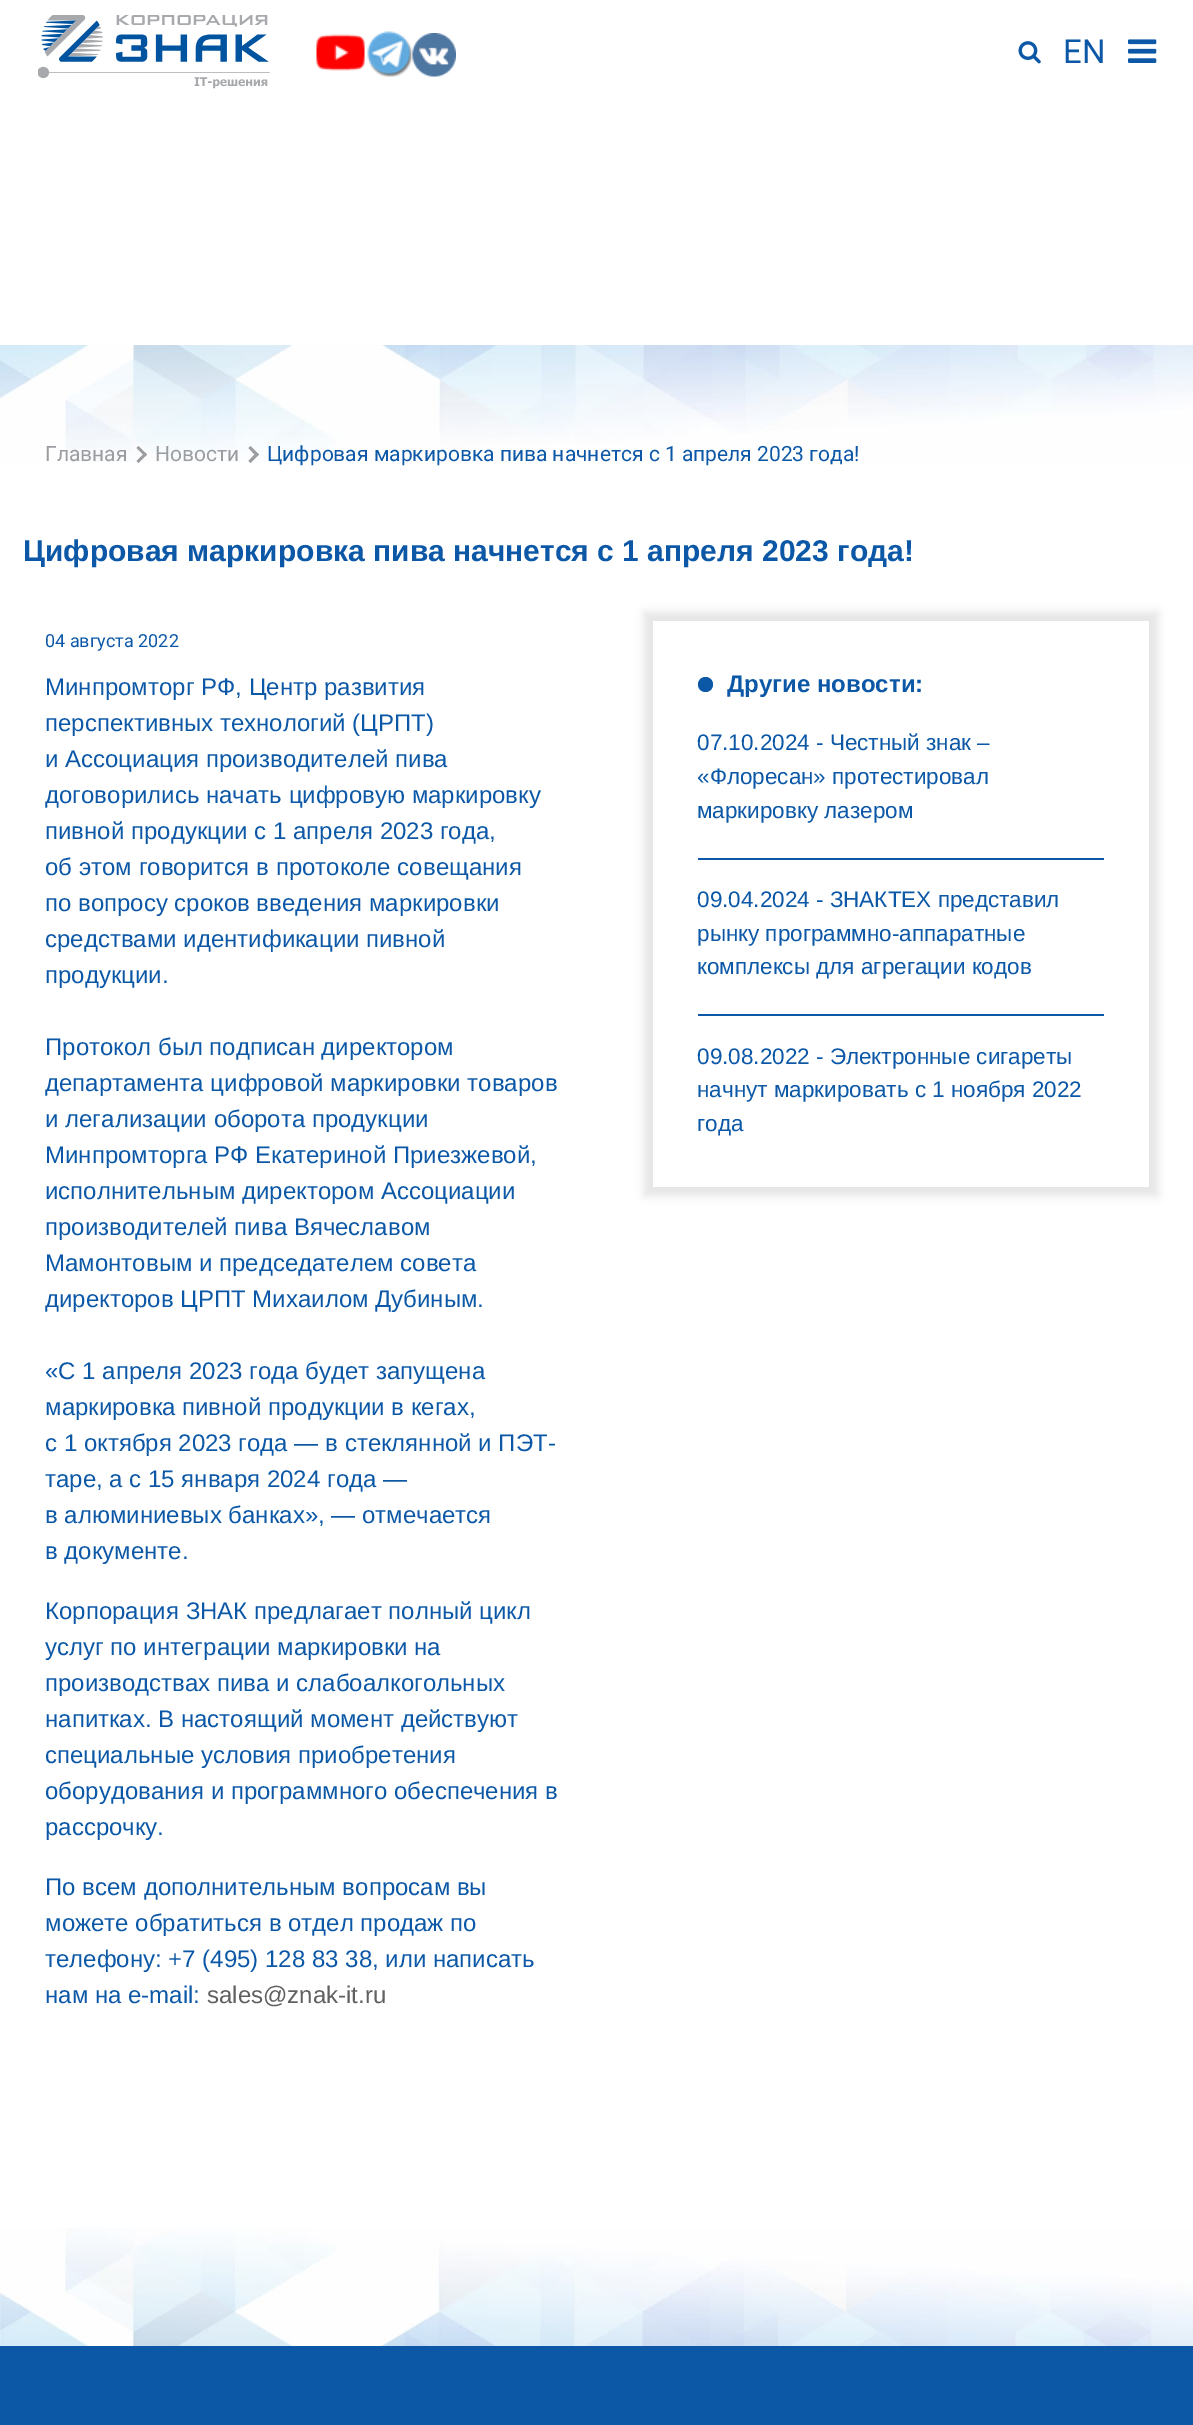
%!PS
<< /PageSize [1193 2425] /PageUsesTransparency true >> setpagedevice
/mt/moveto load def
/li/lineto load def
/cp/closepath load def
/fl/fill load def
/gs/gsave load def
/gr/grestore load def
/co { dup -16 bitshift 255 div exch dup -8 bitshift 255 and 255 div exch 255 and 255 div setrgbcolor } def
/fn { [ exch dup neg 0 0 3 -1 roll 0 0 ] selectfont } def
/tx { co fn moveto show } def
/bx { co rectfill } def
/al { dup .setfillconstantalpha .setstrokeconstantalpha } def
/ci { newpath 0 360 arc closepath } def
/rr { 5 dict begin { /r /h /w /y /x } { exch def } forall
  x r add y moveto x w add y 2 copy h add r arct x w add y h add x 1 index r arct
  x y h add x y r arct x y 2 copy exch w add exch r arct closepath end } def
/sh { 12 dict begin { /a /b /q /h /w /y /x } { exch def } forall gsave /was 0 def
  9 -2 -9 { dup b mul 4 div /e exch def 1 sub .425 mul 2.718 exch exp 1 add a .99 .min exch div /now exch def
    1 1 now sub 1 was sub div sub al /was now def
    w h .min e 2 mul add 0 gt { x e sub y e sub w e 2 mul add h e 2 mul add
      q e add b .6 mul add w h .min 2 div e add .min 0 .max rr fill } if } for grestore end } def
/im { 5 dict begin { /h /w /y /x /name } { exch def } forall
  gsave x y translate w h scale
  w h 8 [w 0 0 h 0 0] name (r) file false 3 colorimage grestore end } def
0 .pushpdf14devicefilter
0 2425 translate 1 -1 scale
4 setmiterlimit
0 0 1193 2425 16#FFFFFF bx
(media/1.raw) 38 15 232 74 im
(media/2.raw) 316 34 49 37 im
(media/3.raw) 367 31 46 46 im
(media/4.raw) 412 33 44 44 im
(media/5.raw) 1018 41 23 23 im
(media/6.raw) 1128 39 29 24 im
(media/7.raw) 0 345 1193 117 im
16#9B9CA0 co
136.5 448 mt 138.5 446 li 147 454.5 li 145 456.5 li cp fl
136.5 461 mt 145 452.5 li 147 454.5 li 138.5 463 li cp fl
248.5 448 mt 250.5 446 li 259 454.5 li 256.5 456.5 li cp fl
248.5 461 mt 256.5 452.5 li 259 454.5 li 250.5 463 li cp fl
gs
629 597 mt 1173 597 li 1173 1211 li 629 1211 li cp 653 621 mt 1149 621 li 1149 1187 li 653 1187 li cp eoclip newpath
16#000000 co
644 612 514 584 0 4.5 .1 sh
gr
16#0C58A7 co
705.5 684.5 7.5 ci fl
698 858 406 2 16#0C58A7 bx
698 1014 406 2 16#0C58A7 bx
(media/8.raw) 0 2228 1193 118 im
0 2346 1193 79 16#0C58A7 bx
(EN) 1063 63 /Roboto-Regular 33 16#0C58A7 tx
(Главная) 45 461 /Roboto-Regular 21 16#9B9CA0 tx
(Новости) 155 461 /Roboto-Regular 21 16#9B9CA0 tx
(Цифровая маркировка пива начнется с 1 апреля 2023 года!) 267 461 /Roboto-Regular 21 16#0C58A7 tx
(Цифровая маркировка пива начнется с 1 апреля 2023 года!) 23 561 /LiberationSans-Bold 30 16#0C58A7 tx
(04 августа 2022) 45 647 /Roboto-Regular 18 16#0C58A7 tx
(Минпромторг РФ, Центр развития) 45 695 /LiberationSans-Regular 24 16#0C58A7 tx
(перспективных технологий \(ЦРПТ\)) 45 731 /LiberationSans-Regular 24 16#0C58A7 tx
(и Ассоциация производителей пива) 45 767 /LiberationSans-Regular 24 16#0C58A7 tx
(договорились начать цифровую маркировку) 45 803 /LiberationSans-Regular 24 16#0C58A7 tx
(пивной продукции с 1 апреля 2023 года,) 45 839 /LiberationSans-Regular 24 16#0C58A7 tx
(об этом говорится в протоколе совещания) 45 875 /LiberationSans-Regular 24 16#0C58A7 tx
(по вопросу сроков введения маркировки) 45 911 /LiberationSans-Regular 24 16#0C58A7 tx
(средствами идентификации пивной) 45 947 /LiberationSans-Regular 24 16#0C58A7 tx
(продукции.) 45 983 /LiberationSans-Regular 24 16#0C58A7 tx
(Протокол был подписан директором) 45 1055 /LiberationSans-Regular 24 16#0C58A7 tx
(департамента цифровой маркировки товаров) 45 1091 /LiberationSans-Regular 24 16#0C58A7 tx
(и легализации оборота продукции) 45 1127 /LiberationSans-Regular 24 16#0C58A7 tx
(Минпромторга РФ Екатериной Приезжевой,) 45 1163 /LiberationSans-Regular 24 16#0C58A7 tx
(исполнительным директором Ассоциации) 45 1199 /LiberationSans-Regular 24 16#0C58A7 tx
(производителей пива Вячеславом) 45 1235 /LiberationSans-Regular 24 16#0C58A7 tx
(Мамонтовым и председателем совета) 45 1271 /LiberationSans-Regular 24 16#0C58A7 tx
(директоров ЦРПТ Михаилом Дубиным.) 45 1307 /LiberationSans-Regular 24 16#0C58A7 tx
(«С 1 апреля 2023 года будет запущена) 45 1379 /LiberationSans-Regular 24 16#0C58A7 tx
(маркировка пивной продукции в кегах,) 45 1415 /LiberationSans-Regular 24 16#0C58A7 tx
(с 1 октября 2023 года — в стеклянной и ПЭТ-) 45 1451 /LiberationSans-Regular 24 16#0C58A7 tx
(таре, а с 15 января 2024 года —) 45 1487 /LiberationSans-Regular 24 16#0C58A7 tx
(в алюминиевых банках», — отмечается) 45 1523 /LiberationSans-Regular 24 16#0C58A7 tx
(в документе.) 45 1559 /LiberationSans-Regular 24 16#0C58A7 tx
(Корпорация ЗНАК предлагает полный цикл) 45 1619 /LiberationSans-Regular 24 16#0C58A7 tx
(услуг по интеграции маркировки на) 45 1655 /LiberationSans-Regular 24 16#0C58A7 tx
(производствах пива и слабоалкогольных) 45 1691 /LiberationSans-Regular 24 16#0C58A7 tx
(напитках. В настоящий момент действуют) 45 1727 /LiberationSans-Regular 24 16#0C58A7 tx
(специальные условия приобретения) 45 1763 /LiberationSans-Regular 24 16#0C58A7 tx
(оборудования и программного обеспечения в) 45 1799 /LiberationSans-Regular 24 16#0C58A7 tx
(рассрочку.) 45 1835 /LiberationSans-Regular 24 16#0C58A7 tx
(По всем дополнительным вопросам вы) 45 1895 /LiberationSans-Regular 24 16#0C58A7 tx
(можете обратиться в отдел продаж по) 45 1931 /LiberationSans-Regular 24 16#0C58A7 tx
(телефону: +7 \(495\) 128 83 38, или написать) 45 1967 /LiberationSans-Regular 24 16#0C58A7 tx
(нам на e-mail:) 45 2003 /LiberationSans-Regular 24 16#0C58A7 tx
(sales@znak-it.ru) 207 2003 /LiberationSans-Regular 24 16#606060 tx
(Другие новости:) 727 692 /LiberationSans-Bold 24 16#0C58A7 tx
(07.10.2024 - Честный знак –) 697 750 /LiberationSans-Regular 22.5 16#0C58A7 tx
(«Флоресан» протестировал) 697 784 /LiberationSans-Regular 22.5 16#0C58A7 tx
(маркировку лазером) 697 818 /LiberationSans-Regular 22.5 16#0C58A7 tx
(09.04.2024 - ЗНАКТЕХ представил) 697 907 /LiberationSans-Regular 22.5 16#0C58A7 tx
(рынку программно-аппаратные) 697 941 /LiberationSans-Regular 22.5 16#0C58A7 tx
(комплексы для агрегации кодов) 697 974 /LiberationSans-Regular 22.5 16#0C58A7 tx
(09.08.2022 - Электронные сигареты) 697 1064 /LiberationSans-Regular 22.5 16#0C58A7 tx
(начнут маркировать с 1 ноября 2022) 697 1097 /LiberationSans-Regular 22.5 16#0C58A7 tx
(года) 697 1131 /LiberationSans-Regular 22.5 16#0C58A7 tx
.poppdf14devicefilter showpage
